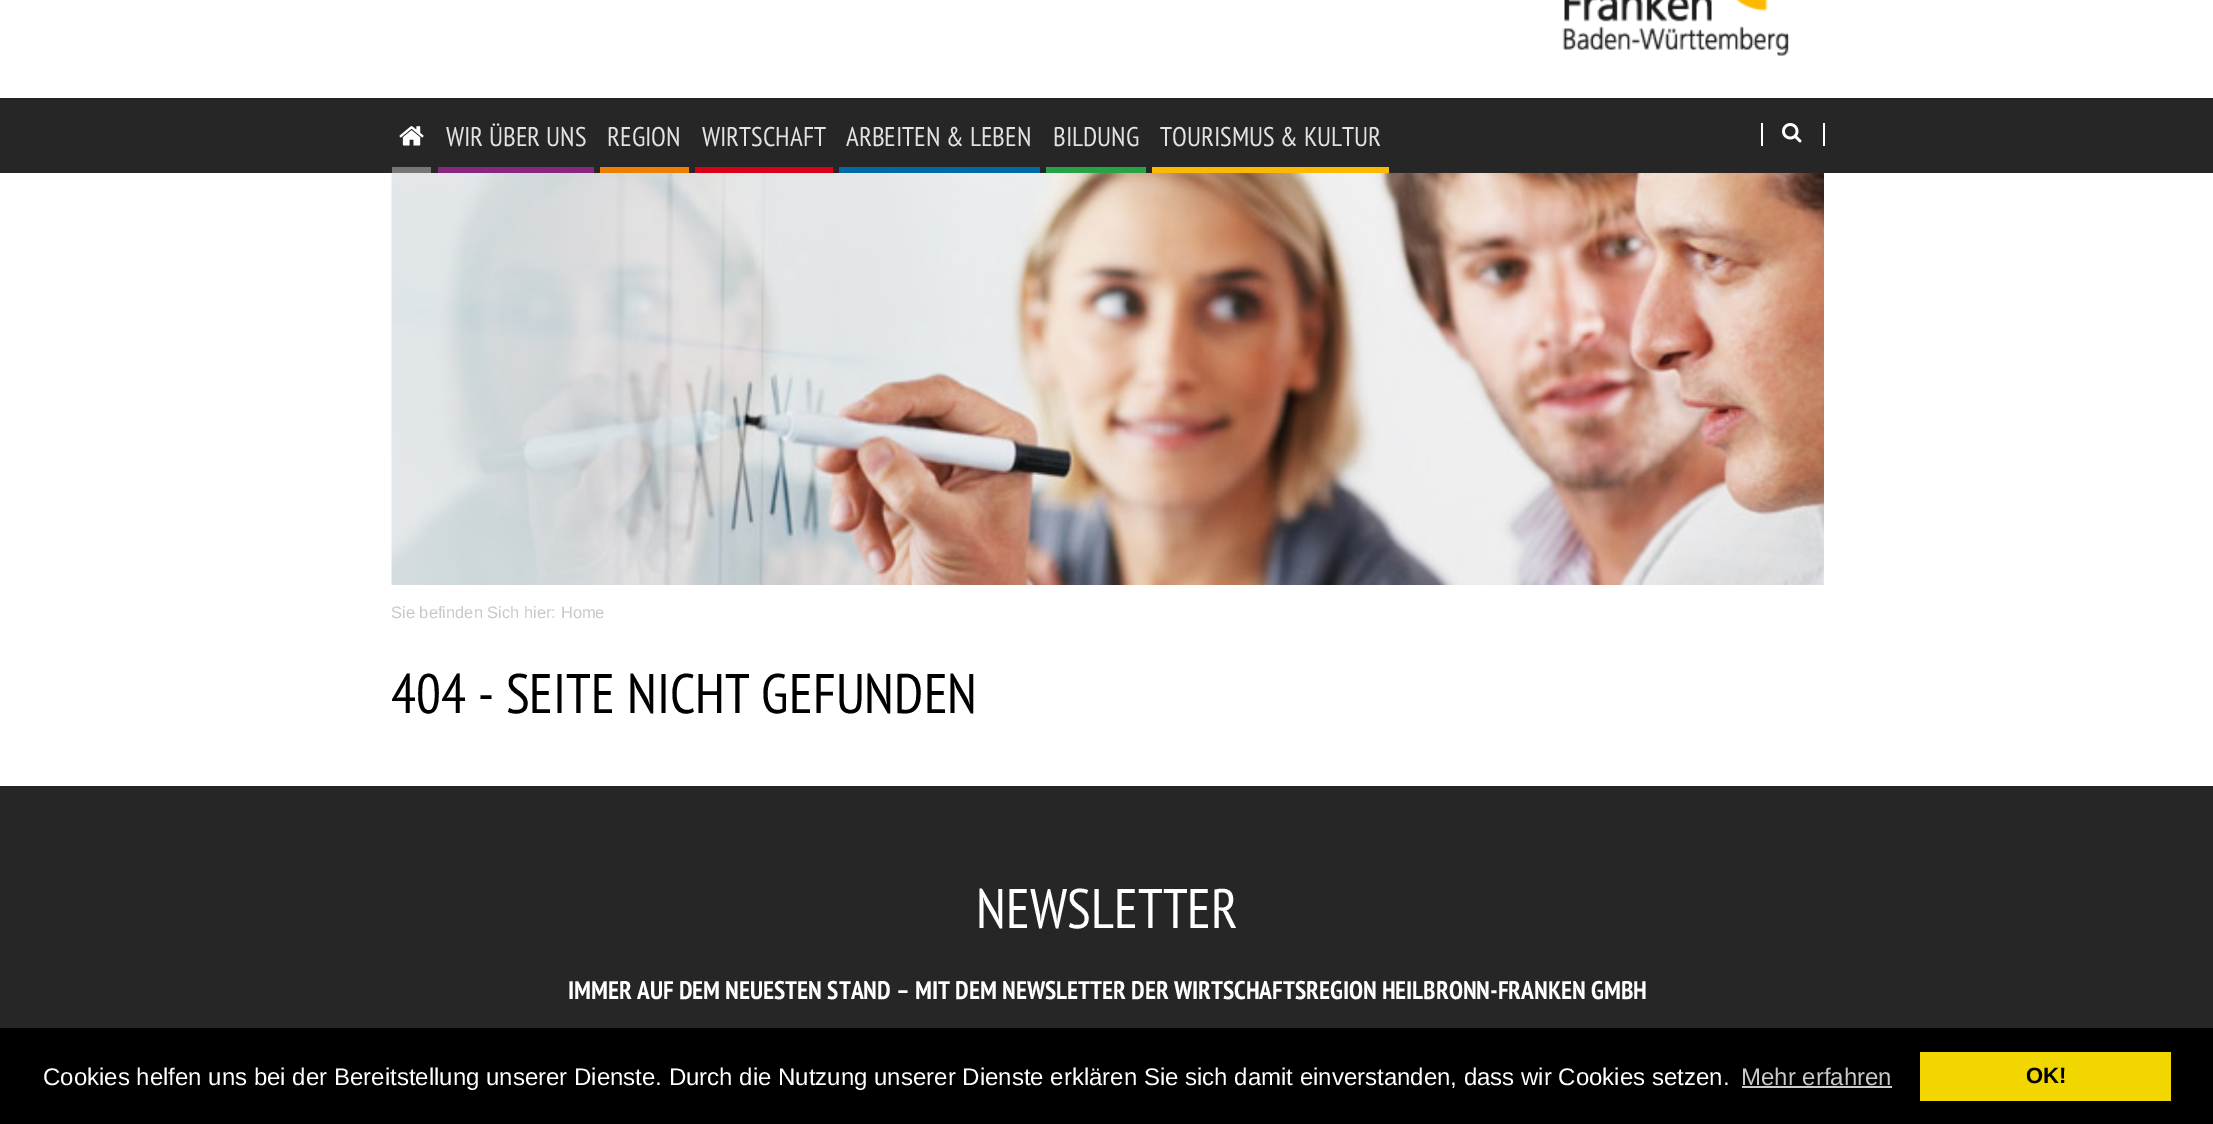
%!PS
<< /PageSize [2213 1124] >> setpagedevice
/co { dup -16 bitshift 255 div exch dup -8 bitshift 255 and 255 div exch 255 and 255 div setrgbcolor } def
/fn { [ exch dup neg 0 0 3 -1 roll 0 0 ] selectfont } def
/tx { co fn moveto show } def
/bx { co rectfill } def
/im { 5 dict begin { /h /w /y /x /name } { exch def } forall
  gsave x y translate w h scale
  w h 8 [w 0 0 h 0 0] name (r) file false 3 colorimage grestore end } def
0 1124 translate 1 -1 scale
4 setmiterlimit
0 0 2213 1124 16#FFFFFF bx
(media/1.raw) 1562 0 227 56 im
0 98 2213 75 16#262626 bx
392 167 39 6 16#777676 bx
(media/2.raw) 399 126 25 20 im
438 167 156 6 16#892680 bx
600 167 89 6 16#EE7F01 bx
695 167 138 6 16#D9001A bx
839 167 201 6 16#006AA7 bx
1046 167 100 6 16#25A345 bx
1152 167 237 6 16#FBBA00 bx
1823 123 2 23 16#FFFFFF bx
1761 123 2 23 16#FFFFFF bx
(media/3.raw) 1782 123 20 20 im
(media/4.raw) 391 173 1433 412 im
0 786 2213 242 16#262626 bx
0 1028 2213 96 16#000000 bx
1742 1086 150 2 16#CCCCCC bx
1920 1052 251 49 16#F1D600 bx
(WIR ÜBER UNS) 446 146 /PTSansNarrow-Regular 27 16#E2E2E2 tx
(REGION) 607 146 /PTSansNarrow-Regular 27 16#E2E2E2 tx
(WIRTSCHAFT) 702 146 /PTSansNarrow-Regular 27 16#E2E2E2 tx
(ARBEITEN & LEBEN) 846 146 /PTSansNarrow-Regular 27 16#E2E2E2 tx
(BILDUNG) 1053 146 /PTSansNarrow-Regular 27 16#E2E2E2 tx
(TOURISMUS & KULTUR) 1160 146 /PTSansNarrow-Regular 27 16#E2E2E2 tx
(Sie befinden Sich hier: Home) 391 618 /LiberationSans-Regular 16.5 16#C9C9C9 tx
(404 - SEITE NICHT GEFUNDEN) 391 713 /PTSansNarrow-Regular 55.6 16#000000 tx
(NEWSLETTER) 976 928 /PTSansNarrow-Regular 55.6 16#FFFFFF tx
(IMMER AUF DEM NEUESTEN STAND – MIT DEM NEWSLETTER DER WIRTSCHAFTSREGION HEILBRONN-FRANKEN GMBH) 568 999 /PTSansNarrow-Bold 25.5 16#FFFFFF tx
(Cookies helfen uns bei der Bereitstellung unserer Dienste. Durch die Nutzung unserer Dienste erklären Sie sich damit einverstanden, dass wir Cookies setzen.) 43 1085 /LiberationSans-Regular 24 16#FFFFFF tx
(Mehr erfahren) 1741 1085 /LiberationSans-Regular 24 16#C9C9C9 tx
(OK!) 2026 1083 /LiberationSans-Bold 22 16#000000 tx
showpage
